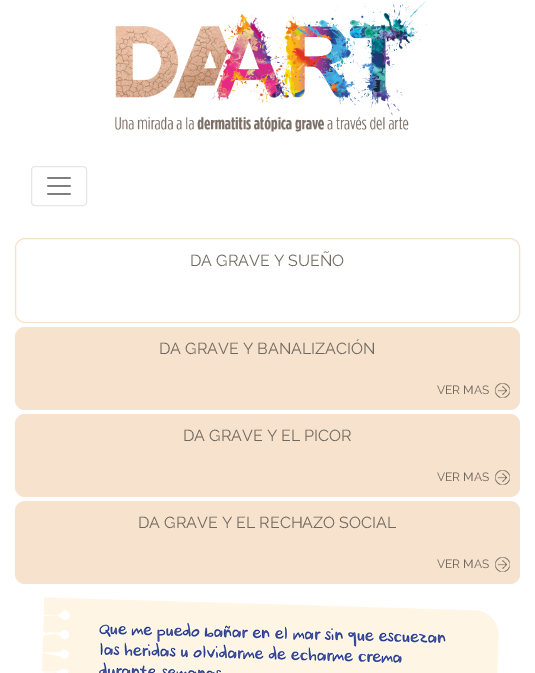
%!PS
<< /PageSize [535 673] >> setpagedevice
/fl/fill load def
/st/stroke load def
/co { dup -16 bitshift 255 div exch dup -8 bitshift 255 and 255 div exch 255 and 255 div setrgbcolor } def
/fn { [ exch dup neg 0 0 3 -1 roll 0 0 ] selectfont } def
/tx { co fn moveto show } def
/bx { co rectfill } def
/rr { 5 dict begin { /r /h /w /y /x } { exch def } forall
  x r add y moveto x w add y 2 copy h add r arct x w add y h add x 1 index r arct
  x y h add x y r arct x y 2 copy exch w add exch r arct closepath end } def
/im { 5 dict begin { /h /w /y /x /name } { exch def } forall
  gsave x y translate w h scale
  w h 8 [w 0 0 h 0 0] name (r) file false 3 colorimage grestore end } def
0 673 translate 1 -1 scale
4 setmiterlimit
0 0 535 673 16#FFFFFF bx
(media/1.raw) 115 1 312 131 im
16#E6E6E6 co
31.5 166.5 55 39 3.5 rr st
(media/2.raw) 47 177 24 18 im
16#F7E2CE co
15.5 238.5 504 84 9.5 rr st
15 327 505 83 10 rr fl
(media/3.raw) 495 383 15 15 im
15 414 505 83 10 rr fl
(media/3.raw) 495 470 15 15 im
15 501 505 83 10 rr fl
(media/3.raw) 495 557 15 15 im
(media/4.raw) 42 597 457 76 im
(DA GRAVE Y SUEÑO) 190 266 /Raleway-Thin 16 16#70685D tx
(DA GRAVE Y BANALIZACIÓN) 159 354 /Raleway-Thin 16 16#70685D tx
(VER MAS) 437 394 /Raleway-Thin 12 16#70685D tx
(DA GRAVE Y EL PICOR) 183 441 /Raleway-Thin 16 16#70685D tx
(VER MAS) 437 481 /Raleway-Thin 12 16#70685D tx
(DA GRAVE Y EL RECHAZO SOCIAL) 138 528 /Raleway-Thin 16 16#70685D tx
(VER MAS) 437 568 /Raleway-Thin 12 16#70685D tx
showpage
